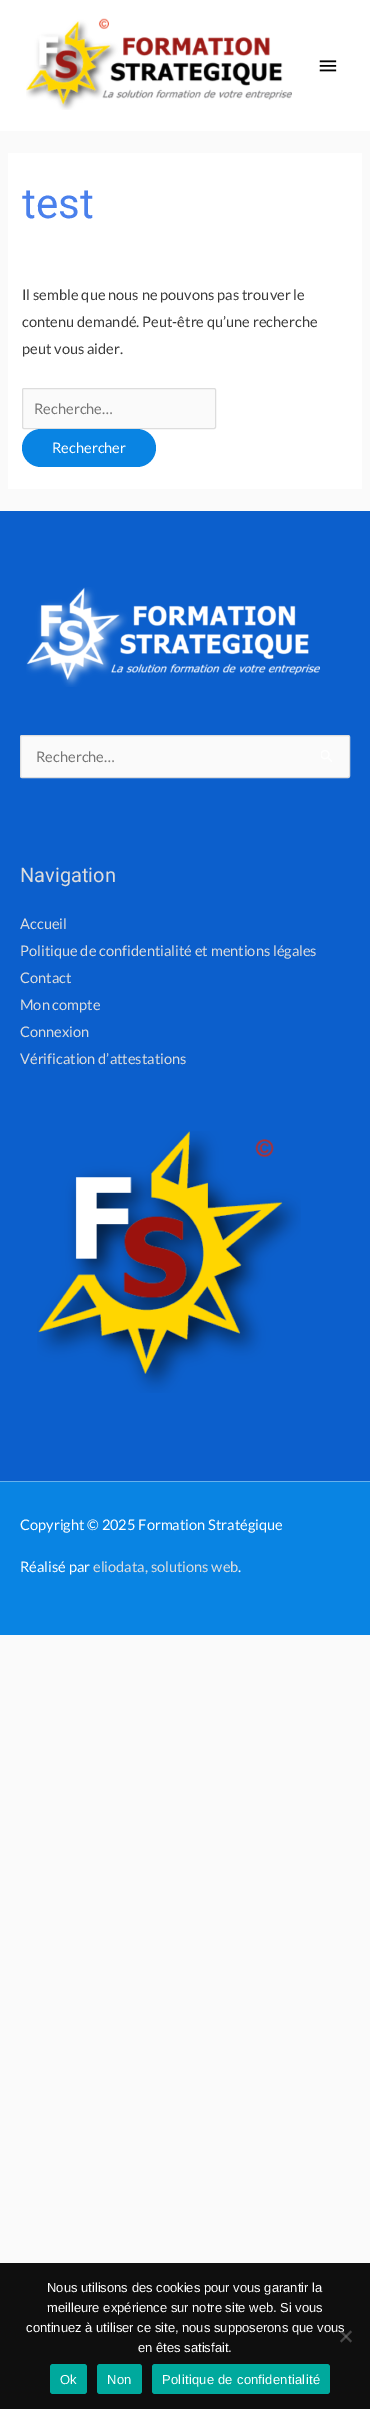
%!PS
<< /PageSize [370 2409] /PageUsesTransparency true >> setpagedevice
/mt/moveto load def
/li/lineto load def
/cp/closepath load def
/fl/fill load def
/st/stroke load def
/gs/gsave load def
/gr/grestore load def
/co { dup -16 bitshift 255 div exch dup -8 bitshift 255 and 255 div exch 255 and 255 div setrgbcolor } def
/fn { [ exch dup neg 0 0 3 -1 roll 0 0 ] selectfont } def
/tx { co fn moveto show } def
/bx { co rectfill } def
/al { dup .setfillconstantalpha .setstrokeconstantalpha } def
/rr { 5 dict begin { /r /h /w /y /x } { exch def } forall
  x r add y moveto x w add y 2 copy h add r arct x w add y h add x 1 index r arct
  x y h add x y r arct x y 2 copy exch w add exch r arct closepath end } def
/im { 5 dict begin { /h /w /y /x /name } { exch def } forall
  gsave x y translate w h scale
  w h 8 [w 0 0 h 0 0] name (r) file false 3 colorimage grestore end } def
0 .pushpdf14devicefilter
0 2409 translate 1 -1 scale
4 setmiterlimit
0 0 370 2409 16#FAFAFA bx
0 2263 370 146 16#0F0F0F bx
0 0 370 131 16#FFFFFF bx
(media/1.raw) 26 18 266 92 im
(media/2.raw) 319 60 18 12 im
8 153 354 336 16#FFFFFF bx
16#FAFAFA co
22.5 388.5 193 40 1.5 rr gs fl gr
16#DDDDDD co
st
16#0984E3 co
22 429 134 38 19 rr fl
0 511 370 970 16#0C5FCC bx
(media/3.raw) 26 587 294 100 im
16#FAFAFA co
20.5 735.5 329 42 1.5 rr gs fl gr
16#DDDDDD co
st
(media/4.raw) 321 750 11 12 im
(media/5.raw) 37 1131 264 262 im
0 1481 370 1 16#65B1EC bx
0 1482 370 153 16#0984E3 bx
16#00A99D co
50 2364 37 30 3 rr fl
97 2364 45 30 3 rr fl
152 2364 178 30 3 rr fl
(test) 22 218 /Roboto-Regular 42 16#4A80EC tx
(Il semble que nous ne pouvons pas trouver le) 22 300 /Lato-Regular 14.6 16#3A3A3A tx
(contenu demandé. Peut-être qu’une recherche) 22 327 /Lato-Regular 14.6 16#3A3A3A tx
(peut vous aider.) 22 354 /Lato-Regular 14.6 16#3A3A3A tx
(Recherche…) 34 414 /Lato-Regular 14.6 16#757575 tx
(Rechercher) 52 453 /Lato-Regular 14.6 16#FFFFFF tx
(Recherche…) 36 762 /Lato-Regular 14.6 16#757575 tx
(Navigation) 20 882 /Roboto-Regular 20 16#DDDDDD tx
(Accueil) 20 929 /Lato-Regular 14.6 16#DDDDDD tx
(Politique de confidentialité et mentions légales) 20 956 /Lato-Regular 14.6 16#DDDDDD tx
(Contact) 20 983 /Lato-Regular 14.6 16#DDDDDD tx
(Mon compte) 20 1010 /Lato-Regular 14.6 16#DDDDDD tx
(Connexion) 20 1037 /Lato-Regular 14.6 16#DDDDDD tx
(Vérification d’attestations) 20 1064 /Lato-Regular 14.6 16#DDDDDD tx
(Copyright © 2025 Formation Stratégique) 20 1530 /Lato-Regular 14.6 16#FFFFFF tx
(Réalisé par) 20 1572 /Lato-Regular 14.6 16#FFFFFF tx
(eliodata, solutions web) 93 1572 /Lato-Regular 14.6 16#DDDDDD tx
(.) 238 1572 /Lato-Regular 14.6 16#FFFFFF tx
(Nous utilisons des cookies pour vous garantir la) 47 2292 /LiberationSans-Regular 13 16#FFFFFF tx
(meilleure expérience sur notre site web. Si vous) 47 2312 /LiberationSans-Regular 13 16#FFFFFF tx
(continuez à utiliser ce site, nous supposerons que vous) 26 2332 /LiberationSans-Regular 13 16#FFFFFF tx
(en êtes satisfait.) 138 2352 /LiberationSans-Regular 13 16#FFFFFF tx
0.5 al
16#808080 co
350.5 2330.5 mt 352 2332 li 341.5 2342.5 li 340 2341 li cp fl
340 2332 mt 341.5 2330.5 li 352 2341 li 350.5 2342.5 li cp fl
1 al
16#FFFFFF co
60 2384 mt .25 0 (Ok) ashow
107 2384 mt .25 0 (Non) ashow
162 2384 mt .25 0 (Politique de confidentialité) ashow
.poppdf14devicefilter showpage
